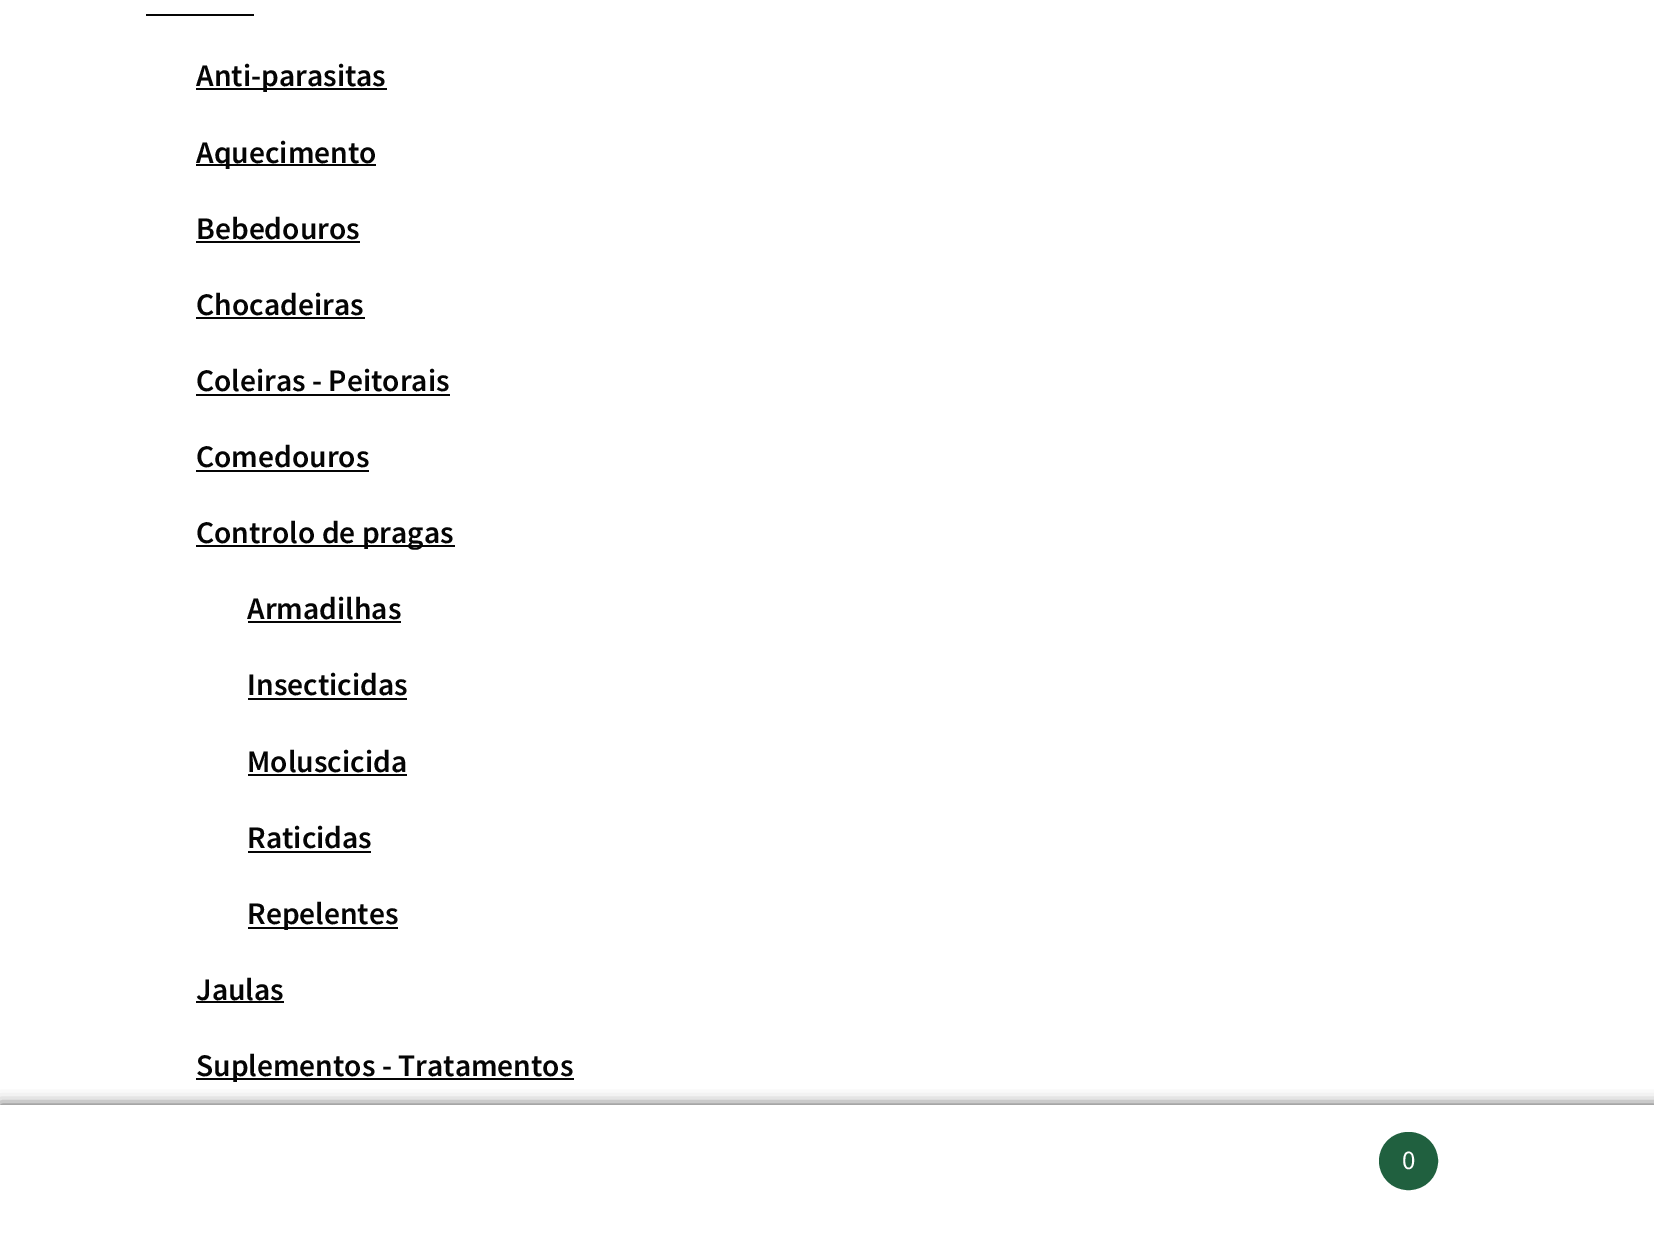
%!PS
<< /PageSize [1654 1260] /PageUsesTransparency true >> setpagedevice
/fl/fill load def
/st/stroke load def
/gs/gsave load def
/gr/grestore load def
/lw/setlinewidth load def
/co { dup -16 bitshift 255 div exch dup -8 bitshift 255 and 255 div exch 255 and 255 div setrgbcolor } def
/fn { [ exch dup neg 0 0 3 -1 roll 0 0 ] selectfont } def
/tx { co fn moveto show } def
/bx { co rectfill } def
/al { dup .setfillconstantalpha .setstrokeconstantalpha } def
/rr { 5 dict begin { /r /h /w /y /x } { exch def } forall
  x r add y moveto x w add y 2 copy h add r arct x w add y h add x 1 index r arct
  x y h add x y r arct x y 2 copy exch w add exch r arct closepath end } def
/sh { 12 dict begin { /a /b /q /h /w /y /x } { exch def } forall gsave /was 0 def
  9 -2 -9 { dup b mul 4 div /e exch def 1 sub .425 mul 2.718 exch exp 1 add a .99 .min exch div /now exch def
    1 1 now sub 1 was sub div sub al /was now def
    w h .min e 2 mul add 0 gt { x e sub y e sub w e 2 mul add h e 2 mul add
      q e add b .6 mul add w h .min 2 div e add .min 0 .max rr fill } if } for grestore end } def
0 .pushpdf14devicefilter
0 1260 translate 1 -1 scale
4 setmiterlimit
0 0 1654 1260 16#FFFFFF bx
146 14 108 2 16#050505 bx
196 88 191 2 16#050505 bx
196 164 180 2 16#050505 bx
196 241 164 2 16#050505 bx
196 317 169 2 16#050505 bx
196 394 254 2 16#050505 bx
196 470 173 2 16#050505 bx
196 545 259 2 16#050505 bx
248 621 153 2 16#050505 bx
248 698 159 2 16#050505 bx
248 774 159 2 16#050505 bx
248 851 123 2 16#050505 bx
248 927 150 2 16#050505 bx
196 1001 88 2 16#050505 bx
196 1078 378 2 16#050505 bx
16#000000 co
0 1105 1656 155 0 7 .7 sh
0 1105 1654 2 16#FFFFFF bx
0 1107 1654 153 16#FFFFFF bx
16#20603F co
1380 1133 57 56 28 rr gs fl gr
2 lw
st
(Anti-parasitas) 196 86 /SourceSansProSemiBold-SemiBold 31.5 16#050505 tx
(Aquecimento) 196 163 /SourceSansProSemiBold-SemiBold 31.5 16#050505 tx
(Bebedouros) 196 239 /SourceSansProSemiBold-SemiBold 31.5 16#050505 tx
(Chocadeiras) 196 315 /SourceSansProSemiBold-SemiBold 31.5 16#050505 tx
(Coleiras - Peitorais) 196 391 /SourceSansProSemiBold-SemiBold 31.5 16#050505 tx
(Comedouros) 196 467 /SourceSansProSemiBold-SemiBold 31.5 16#050505 tx
(Controlo de pragas) 196 543 /SourceSansProSemiBold-SemiBold 31.5 16#050505 tx
(Armadilhas) 247 619 /SourceSansProSemiBold-SemiBold 31.5 16#050505 tx
(Insecticidas) 247 695 /SourceSansProSemiBold-SemiBold 31.5 16#050505 tx
(Moluscicida) 247 772 /SourceSansProSemiBold-SemiBold 31.5 16#050505 tx
(Raticidas) 247 848 /SourceSansProSemiBold-SemiBold 31.5 16#050505 tx
(Repelentes) 247 924 /SourceSansProSemiBold-SemiBold 31.5 16#050505 tx
(Jaulas) 196 1000 /SourceSansProSemiBold-SemiBold 31.5 16#050505 tx
(Suplementos - Tratamentos) 196 1076 /SourceSansProSemiBold-SemiBold 31.5 16#050505 tx
(0) 1402 1169 /SourceSansPro-Regular 27 16#FFFFFF tx
.poppdf14devicefilter showpage
